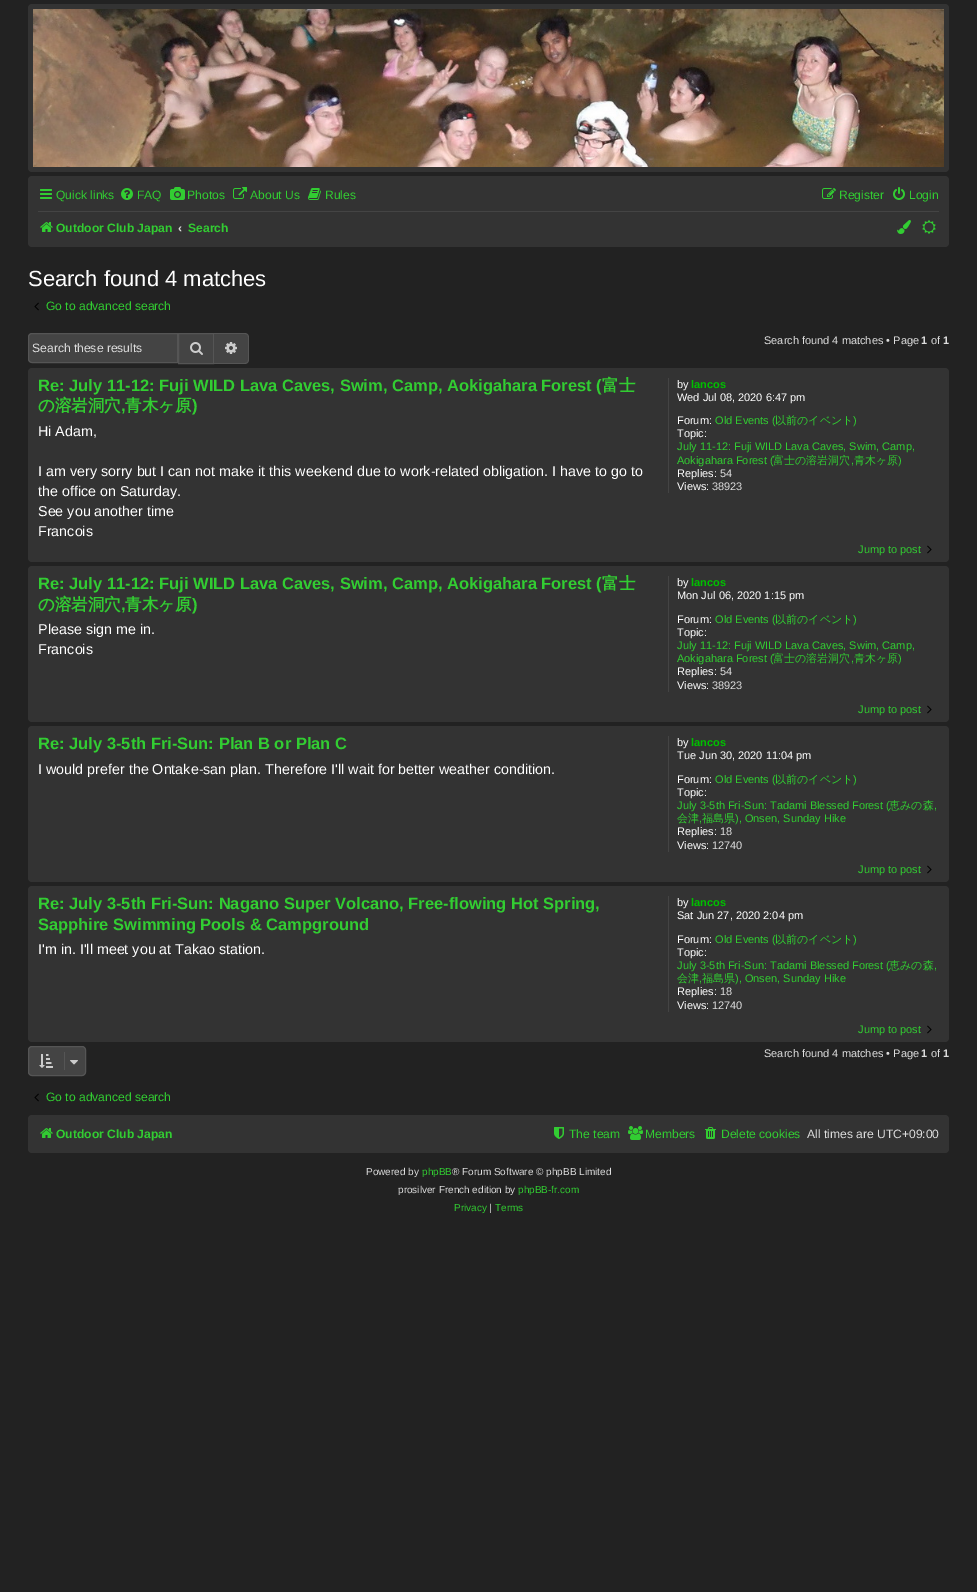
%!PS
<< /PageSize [977 1592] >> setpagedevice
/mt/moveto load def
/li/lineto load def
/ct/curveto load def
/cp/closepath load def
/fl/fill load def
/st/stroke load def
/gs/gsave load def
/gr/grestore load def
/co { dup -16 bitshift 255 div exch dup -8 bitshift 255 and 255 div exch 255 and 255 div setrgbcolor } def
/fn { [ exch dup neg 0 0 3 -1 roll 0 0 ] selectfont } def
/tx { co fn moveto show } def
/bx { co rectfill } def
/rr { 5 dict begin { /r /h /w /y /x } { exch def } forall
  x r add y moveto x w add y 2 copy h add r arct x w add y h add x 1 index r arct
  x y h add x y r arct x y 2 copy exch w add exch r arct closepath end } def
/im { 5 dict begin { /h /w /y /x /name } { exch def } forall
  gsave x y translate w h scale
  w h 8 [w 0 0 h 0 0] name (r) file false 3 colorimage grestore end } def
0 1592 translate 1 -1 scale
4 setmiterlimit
0 0 977 1592 16#222222 bx
16#333333 co
28 4 921 168 4 rr fl
(media/1.raw) 33 9 911 158 im
28 176 921 71 4 rr fl
(media/2.raw) 40 189 12 10 im
(media/3.raw) 121 188 12 12 im
(media/4.raw) 170 187 15 13 im
(media/5.raw) 233 187 14 12 im
(media/6.raw) 308 188 13 12 im
(media/7.raw) 822 188 14 11 im
(media/8.raw) 893 187 12 13 im
38 211 901 1 16#444444 bx
(media/9.raw) 40 222 13 10 im
(media/10.raw) 897 220 14 14 im
(media/11.raw) 922 220 14 14 im
(media/12.raw) 34 302 5 9 im
32 333.5 mt 177.5 333.5 li 177.5 362.5 li 32 362.5 li 30 362.5 28.5 361 28.5 359 ct 28.5 337 li 28.5 335 30 333.5 32 333.5 ct cp gs fl gr
16#555555 co
st
16#444444 co
178.5 333.5 mt 213.5 333.5 li 213.5 363.5 li 178.5 363.5 li cp gs fl gr
16#555555 co
st
(media/13.raw) 190 342 13 13 im
16#444444 co
214 334 mt 245 334 li 246.5 334 248 335.5 248 337 ct 248 360 li 248 361.5 246.5 363 245 363 ct 214 363 li cp fl
16#555555 co
214 333 mt 245 333 li 247 333 249 335 249 337 ct 249 360 li 249 362 247 364 245 364 ct 214 364 li cp 214 334 mt 245 334 li 246.5 334 248 335.5 248 337 ct 248 360 li 248 361.5 246.5 363 245 363 ct 214 363 li cp eofill
(media/14.raw) 225 342 12 12 im
16#333333 co
28 368 921 194 4 rr fl
668 378 1 115 16#444444 bx
(media/15.raw) 927 545 5 9 im
16#333333 co
28 566 921 156 4 rr fl
668 576 1 116 16#444444 bx
(media/15.raw) 927 705 5 9 im
16#333333 co
28 726 921 156 4 rr fl
668 736 1 116 16#444444 bx
(media/15.raw) 927 865 5 9 im
16#333333 co
28 886 921 156 4 rr fl
668 896 1 116 16#444444 bx
(media/15.raw) 927 1025 5 9 im
28.5 1046.5 57 29 3.5 rr gs fl gr
16#555555 co
st
(media/16.raw) 39 1054 14 14 im
64 1052 1 18 16#555555 bx
(media/17.raw) 70 1060 8 5 im
(media/12.raw) 34 1093 5 9 im
16#333333 co
28 1115 921 38 4 rr fl
(media/9.raw) 40 1128 13 10 im
(media/18.raw) 554 1127 10 12 im
(media/19.raw) 628 1126 15 14 im
(media/20.raw) 705 1127 11 12 im
(Quick links) 56 199 /LiberationSans-Regular 12.1 16#32CD32 tx
(FAQ) 137 199 /LiberationSans-Regular 12.1 16#32CD32 tx
(Photos) 187 199 /LiberationSans-Regular 12.1 16#32CD32 tx
(About Us) 250 199 /LiberationSans-Regular 12.1 16#32CD32 tx
(Rules) 325 199 /LiberationSans-Regular 12.1 16#32CD32 tx
(Register) 839 199 /LiberationSans-Regular 12.1 16#32CD32 tx
(Login) 909 199 /LiberationSans-Regular 12.1 16#32CD32 tx
(Outdoor Club Japan) 56 232 /LiberationSans-Bold 12.1 16#32CD32 tx
(‹) 178 232 /LiberationSans-Bold 12.1 16#DDDDDD tx
(Search) 188 232 /LiberationSans-Bold 12.1 16#32CD32 tx
(Search found 4 matches) 28 286 /LiberationSans-Regular 22 16#FFFFFF tx
(Go to advanced search) 46 310 /LiberationSans-Regular 12.1 16#32CD32 tx
(Search found 4 matches • Page) 764 344 /LiberationSans-Regular 11 16#DDDDDD tx
(1) 921 344 /LiberationSans-Bold 11 16#DDDDDD tx
(of) 931 344 /LiberationSans-Regular 11 16#DDDDDD tx
(1) 943 344 /LiberationSans-Bold 11 16#DDDDDD tx
(Search these results) 32 352 /LiberationSans-Regular 12.1 16#DDDDDD tx
(Re: July 11-12: Fuji WILD Lava Caves, Swim, Camp, Aokigahara Forest \() 38 391 /LiberationSans-Bold 16.5 16#32CD32 tx
(富士) 602 391 /WenQuanYiZenHei-Bold 16.5 16#32CD32 tx
(の溶岩洞穴) 38 411 /WenQuanYiZenHei-Bold 16.5 16#32CD32 tx
(,) 121 411 /LiberationSans-Bold 16.5 16#32CD32 tx
(青木ヶ原) 125 411 /WenQuanYiZenHei-Bold 16.5 16#32CD32 tx
(\)) 192 411 /LiberationSans-Bold 16.5 16#32CD32 tx
(Hi Adam,) 38 436 /LiberationSans-Regular 14.3 16#FFFFFF tx
(I am very sorry but I can not make it this weekend due to work-related obligation. I have to go to) 38 476 /LiberationSans-Regular 14.3 16#FFFFFF tx
(the office on Saturday.) 38 496 /LiberationSans-Regular 14.3 16#FFFFFF tx
(See you another time) 38 516 /LiberationSans-Regular 14.3 16#FFFFFF tx
(Francois) 38 536 /LiberationSans-Regular 14.3 16#FFFFFF tx
(by) 677 388 /LiberationSans-Regular 11 16#FFFFFF tx
(lancos) 691 388 /LiberationSans-Bold 11 16#00BF00 tx
(Wed Jul 08, 2020 6:47 pm) 677 401 /LiberationSans-Regular 11 16#FFFFFF tx
(Forum:) 677 424 /LiberationSans-Regular 11 16#FFFFFF tx
(Old Events \() 715 424 /LiberationSans-Regular 11 16#32CD32 tx
(以前のイベント) 775 424 /WenQuanYiZenHei-Medium 11 16#32CD32 tx
(\)) 853 424 /LiberationSans-Regular 11 16#32CD32 tx
(Topic:) 677 437 /LiberationSans-Regular 11 16#FFFFFF tx
(July 11-12: Fuji WILD Lava Caves, Swim, Camp,) 677 450 /LiberationSans-Regular 11 16#32CD32 tx
(Aokigahara Forest \() 677 464 /LiberationSans-Regular 11 16#32CD32 tx
(富士の溶岩洞穴 青木ヶ原) 773 464 /WenQuanYiZenHei-Medium 11 16#32CD32 tx
(\)) 898 464 /LiberationSans-Regular 11 16#32CD32 tx
(,) 851 464 /LiberationSans-Regular 11 16#32CD32 tx
(Replies:) 677 477 /LiberationSans-Regular 11 16#FFFFFF tx
(54) 720 477 /LiberationSans-Regular 11 16#DDDDDD tx
(Views:) 677 490 /LiberationSans-Regular 11 16#FFFFFF tx
(38923) 712 490 /LiberationSans-Regular 11 16#DDDDDD tx
(Jump to post) 858 553 /LiberationSans-Regular 11 16#32CD32 tx
(Re: July 11-12: Fuji WILD Lava Caves, Swim, Camp, Aokigahara Forest \() 38 589 /LiberationSans-Bold 16.5 16#32CD32 tx
(富士) 602 589 /WenQuanYiZenHei-Bold 16.5 16#32CD32 tx
(の溶岩洞穴) 38 610 /WenQuanYiZenHei-Bold 16.5 16#32CD32 tx
(,) 121 610 /LiberationSans-Bold 16.5 16#32CD32 tx
(青木ヶ原) 125 610 /WenQuanYiZenHei-Bold 16.5 16#32CD32 tx
(\)) 192 610 /LiberationSans-Bold 16.5 16#32CD32 tx
(Please sign me in.) 38 634 /LiberationSans-Regular 14.3 16#FFFFFF tx
(Francois) 38 654 /LiberationSans-Regular 14.3 16#FFFFFF tx
(by) 677 586 /LiberationSans-Regular 11 16#FFFFFF tx
(lancos) 691 586 /LiberationSans-Bold 11 16#00BF00 tx
(Mon Jul 06, 2020 1:15 pm) 677 599 /LiberationSans-Regular 11 16#FFFFFF tx
(Forum:) 677 623 /LiberationSans-Regular 11 16#FFFFFF tx
(Old Events \() 715 623 /LiberationSans-Regular 11 16#32CD32 tx
(以前のイベント) 775 623 /WenQuanYiZenHei-Medium 11 16#32CD32 tx
(\)) 853 623 /LiberationSans-Regular 11 16#32CD32 tx
(Topic:) 677 636 /LiberationSans-Regular 11 16#FFFFFF tx
(July 11-12: Fuji WILD Lava Caves, Swim, Camp,) 677 649 /LiberationSans-Regular 11 16#32CD32 tx
(Aokigahara Forest \() 677 662 /LiberationSans-Regular 11 16#32CD32 tx
(富士の溶岩洞穴 青木ヶ原) 773 662 /WenQuanYiZenHei-Medium 11 16#32CD32 tx
(\)) 898 662 /LiberationSans-Regular 11 16#32CD32 tx
(,) 851 662 /LiberationSans-Regular 11 16#32CD32 tx
(Replies:) 677 675 /LiberationSans-Regular 11 16#FFFFFF tx
(54) 720 675 /LiberationSans-Regular 11 16#DDDDDD tx
(Views:) 677 689 /LiberationSans-Regular 11 16#FFFFFF tx
(38923) 712 689 /LiberationSans-Regular 11 16#DDDDDD tx
(Jump to post) 858 713 /LiberationSans-Regular 11 16#32CD32 tx
(Re: July 3-5th Fri-Sun: Plan B or Plan C) 38 749 /LiberationSans-Bold 16.5 16#32CD32 tx
(I would prefer the Ontake-san plan. Therefore I'll wait for better weather condition.) 38 774 /LiberationSans-Regular 14.3 16#FFFFFF tx
(by) 677 746 /LiberationSans-Regular 11 16#FFFFFF tx
(lancos) 691 746 /LiberationSans-Bold 11 16#00BF00 tx
(Tue Jun 30, 2020 11:04 pm) 677 759 /LiberationSans-Regular 11 16#FFFFFF tx
(Forum:) 677 783 /LiberationSans-Regular 11 16#FFFFFF tx
(Old Events \() 715 783 /LiberationSans-Regular 11 16#32CD32 tx
(以前のイベント) 775 783 /WenQuanYiZenHei-Medium 11 16#32CD32 tx
(\)) 853 783 /LiberationSans-Regular 11 16#32CD32 tx
(Topic:) 677 796 /LiberationSans-Regular 11 16#FFFFFF tx
(July 3-5th Fri-Sun: Tadami Blessed Forest \() 677 809 /LiberationSans-Regular 11 16#32CD32 tx
(恵みの森) 889 809 /WenQuanYiZenHei-Medium 11 16#32CD32 tx
(,) 934 809 /LiberationSans-Regular 11 16#32CD32 tx
(会津 福島県) 677 822 /WenQuanYiZenHei-Medium 11 16#32CD32 tx
(\), Onsen, Sunday Hike) 735 822 /LiberationSans-Regular 11 16#32CD32 tx
(,) 699 822 /LiberationSans-Regular 11 16#32CD32 tx
(Replies:) 677 835 /LiberationSans-Regular 11 16#FFFFFF tx
(18) 720 835 /LiberationSans-Regular 11 16#DDDDDD tx
(Views:) 677 849 /LiberationSans-Regular 11 16#FFFFFF tx
(12740) 712 849 /LiberationSans-Regular 11 16#DDDDDD tx
(Jump to post) 858 873 /LiberationSans-Regular 11 16#32CD32 tx
(Re: July 3-5th Fri-Sun: Nagano Super Volcano, Free-flowing Hot Spring,) 38 909 /LiberationSans-Bold 16.5 16#32CD32 tx
(Sapphire Swimming Pools & Campground) 38 930 /LiberationSans-Bold 16.5 16#32CD32 tx
(I'm in. I'll meet you at Takao station.) 38 954 /LiberationSans-Regular 14.3 16#FFFFFF tx
(by) 677 906 /LiberationSans-Regular 11 16#FFFFFF tx
(lancos) 691 906 /LiberationSans-Bold 11 16#00BF00 tx
(Sat Jun 27, 2020 2:04 pm) 677 919 /LiberationSans-Regular 11 16#FFFFFF tx
(Forum:) 677 943 /LiberationSans-Regular 11 16#FFFFFF tx
(Old Events \() 715 943 /LiberationSans-Regular 11 16#32CD32 tx
(以前のイベント) 775 943 /WenQuanYiZenHei-Medium 11 16#32CD32 tx
(\)) 853 943 /LiberationSans-Regular 11 16#32CD32 tx
(Topic:) 677 956 /LiberationSans-Regular 11 16#FFFFFF tx
(July 3-5th Fri-Sun: Tadami Blessed Forest \() 677 969 /LiberationSans-Regular 11 16#32CD32 tx
(恵みの森) 889 969 /WenQuanYiZenHei-Medium 11 16#32CD32 tx
(,) 934 969 /LiberationSans-Regular 11 16#32CD32 tx
(会津 福島県) 677 982 /WenQuanYiZenHei-Medium 11 16#32CD32 tx
(\), Onsen, Sunday Hike) 735 982 /LiberationSans-Regular 11 16#32CD32 tx
(,) 699 982 /LiberationSans-Regular 11 16#32CD32 tx
(Replies:) 677 995 /LiberationSans-Regular 11 16#FFFFFF tx
(18) 720 995 /LiberationSans-Regular 11 16#DDDDDD tx
(Views:) 677 1009 /LiberationSans-Regular 11 16#FFFFFF tx
(12740) 712 1009 /LiberationSans-Regular 11 16#DDDDDD tx
(Jump to post) 858 1033 /LiberationSans-Regular 11 16#32CD32 tx
(Search found 4 matches • Page) 764 1057 /LiberationSans-Regular 11 16#DDDDDD tx
(1) 921 1057 /LiberationSans-Bold 11 16#DDDDDD tx
(of) 931 1057 /LiberationSans-Regular 11 16#DDDDDD tx
(1) 943 1057 /LiberationSans-Bold 11 16#DDDDDD tx
(Go to advanced search) 46 1101 /LiberationSans-Regular 12.1 16#32CD32 tx
(Outdoor Club Japan) 56 1138 /LiberationSans-Bold 12.1 16#32CD32 tx
(The team) 569 1138 /LiberationSans-Regular 12.1 16#32CD32 tx
(Members) 645 1138 /LiberationSans-Regular 12.1 16#32CD32 tx
(Delete cookies) 721 1138 /LiberationSans-Regular 12.1 16#32CD32 tx
(All times are UTC+09:00) 807 1138 /LiberationSans-Regular 12.1 16#DDDDDD tx
(Powered by) 366 1175 /LiberationSans-Regular 10 16#DDDDDD tx
(phpBB) 422 1175 /LiberationSans-Regular 10 16#32CD32 tx
(® Forum Software © phpBB Limited) 452 1175 /LiberationSans-Regular 10 16#DDDDDD tx
(prosilver French edition by) 398 1193 /LiberationSans-Regular 10 16#DDDDDD tx
(phpBB-fr.com) 518 1193 /LiberationSans-Regular 10 16#32CD32 tx
(Privacy) 454 1211 /LiberationSans-Regular 10 16#32CD32 tx
(|) 489 1211 /LiberationSans-Regular 10 16#DDDDDD tx
(Terms) 495 1211 /LiberationSans-Regular 10 16#32CD32 tx
showpage
